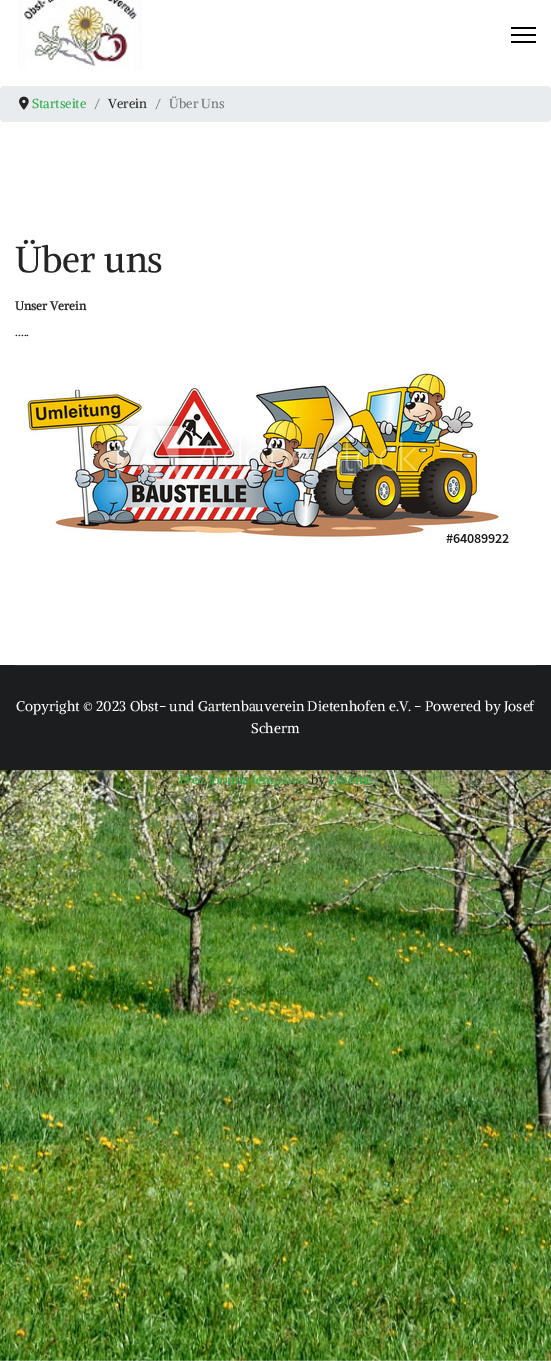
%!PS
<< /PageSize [551 1361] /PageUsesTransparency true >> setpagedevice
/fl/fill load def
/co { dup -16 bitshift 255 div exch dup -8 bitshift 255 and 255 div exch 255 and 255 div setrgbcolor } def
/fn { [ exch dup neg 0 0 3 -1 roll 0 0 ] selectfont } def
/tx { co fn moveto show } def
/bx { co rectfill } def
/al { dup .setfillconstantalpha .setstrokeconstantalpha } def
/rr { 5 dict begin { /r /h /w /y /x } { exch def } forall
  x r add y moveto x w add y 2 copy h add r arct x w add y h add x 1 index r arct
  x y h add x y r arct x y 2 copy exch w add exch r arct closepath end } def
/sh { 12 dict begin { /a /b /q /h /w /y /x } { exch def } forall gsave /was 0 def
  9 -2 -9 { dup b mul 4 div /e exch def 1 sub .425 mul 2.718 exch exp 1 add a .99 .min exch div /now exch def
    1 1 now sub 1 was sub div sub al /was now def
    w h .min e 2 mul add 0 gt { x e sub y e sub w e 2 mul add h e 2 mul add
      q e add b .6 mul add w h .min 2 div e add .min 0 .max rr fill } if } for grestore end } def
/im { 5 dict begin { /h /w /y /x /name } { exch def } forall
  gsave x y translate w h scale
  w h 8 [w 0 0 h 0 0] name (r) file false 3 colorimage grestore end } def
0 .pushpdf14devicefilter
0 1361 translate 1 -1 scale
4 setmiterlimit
0 0 551 1361 16#FFFFFF bx
(media/1.raw) 0 770 551 591 im
16#000000 co
0 0 551 770 0 2.5 .2 sh
0 0 551 665 16#FFFFFF bx
(media/2.raw) 18 0 125 70 im
511 27 25 2 16#000000 bx
511 34 25 2 16#000000 bx
511 41 25 2 16#000000 bx
16#E9ECEF co
0 86 551 36 4 rr fl
(media/3.raw) 19 96 10 14 im
(media/4.raw) 23 370 486 173 im
0 665 551 105 16#1B1D1F bx
15 665 521 1 16#323435 bx
(Startseite) 32 108 /Alike-Regular 13 16#2BA84A tx
(/) 94 108 /Alike-Regular 13 16#6C757D tx
(Verein) 108 108 /Alike-Regular 13 16#252525 tx
(/) 155 108 /Alike-Regular 13 16#6C757D tx
(Über Uns) 169 108 /Alike-Regular 13 16#6C757D tx
(Über uns) 15 272 /Alike-Regular 36 16#252525 tx
(Unser Verein) 15 310 /Alike-Bold 12 16#252525 tx
(.....) 15 336 /Alike-Regular 13 16#252525 tx
(Copyright © 2023 Obst- und Gartenbauverein Dietenhofen e.V. - Powered by Josef) 16 711 /Alike-Regular 14 16#FFFFFF tx
(Scherm) 251 733 /Alike-Regular 14 16#FFFFFF tx
(Free Joomla templates) 179 784 /Alike-Regular 13 16#2BA84A tx
(by) 311 784 /Alike-Regular 13 16#252525 tx
(Ltheme) 329 784 /Alike-Regular 13 16#2BA84A tx
.poppdf14devicefilter showpage
